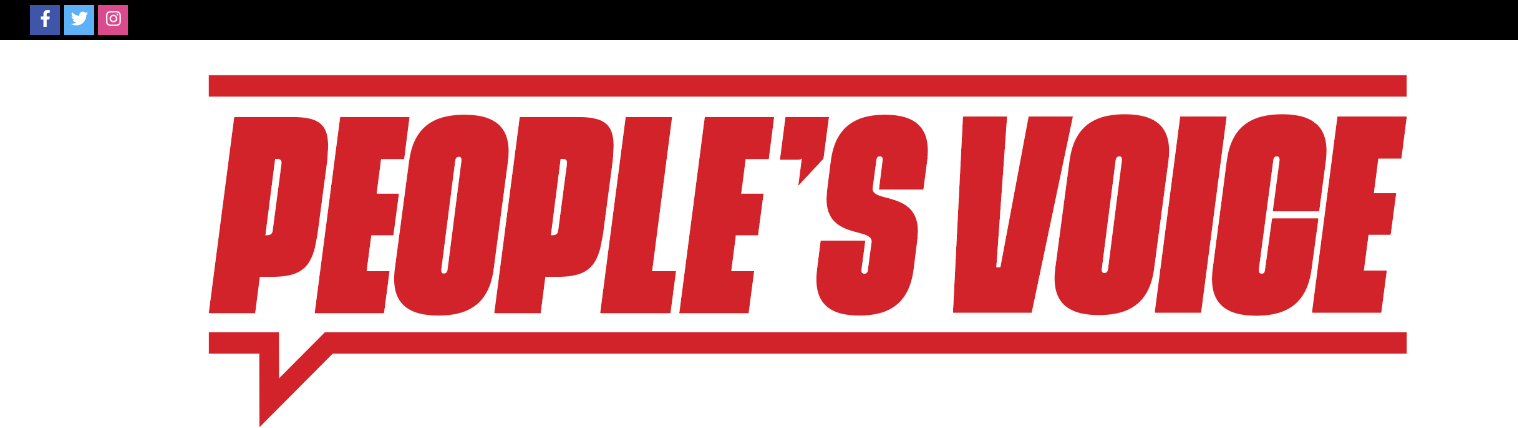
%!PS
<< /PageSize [1518 428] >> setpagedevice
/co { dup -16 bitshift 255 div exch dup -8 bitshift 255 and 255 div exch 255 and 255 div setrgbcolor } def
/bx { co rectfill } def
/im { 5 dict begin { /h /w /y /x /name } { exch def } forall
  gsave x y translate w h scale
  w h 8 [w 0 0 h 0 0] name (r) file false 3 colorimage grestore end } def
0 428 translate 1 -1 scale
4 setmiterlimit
0 0 1518 428 16#000000 bx
30 5 30 30 16#3F55A7 bx
(media/1.raw) 40 10 10 17 im
64 5 30 30 16#5DB2F7 bx
(media/2.raw) 71 11 17 15 im
98 5 30 30 16#DA4A8C bx
(media/3.raw) 106 11 15 15 im
0 40 1518 388 16#FFFFFF bx
(media/4.raw) 208 74 1199 353 im
showpage
